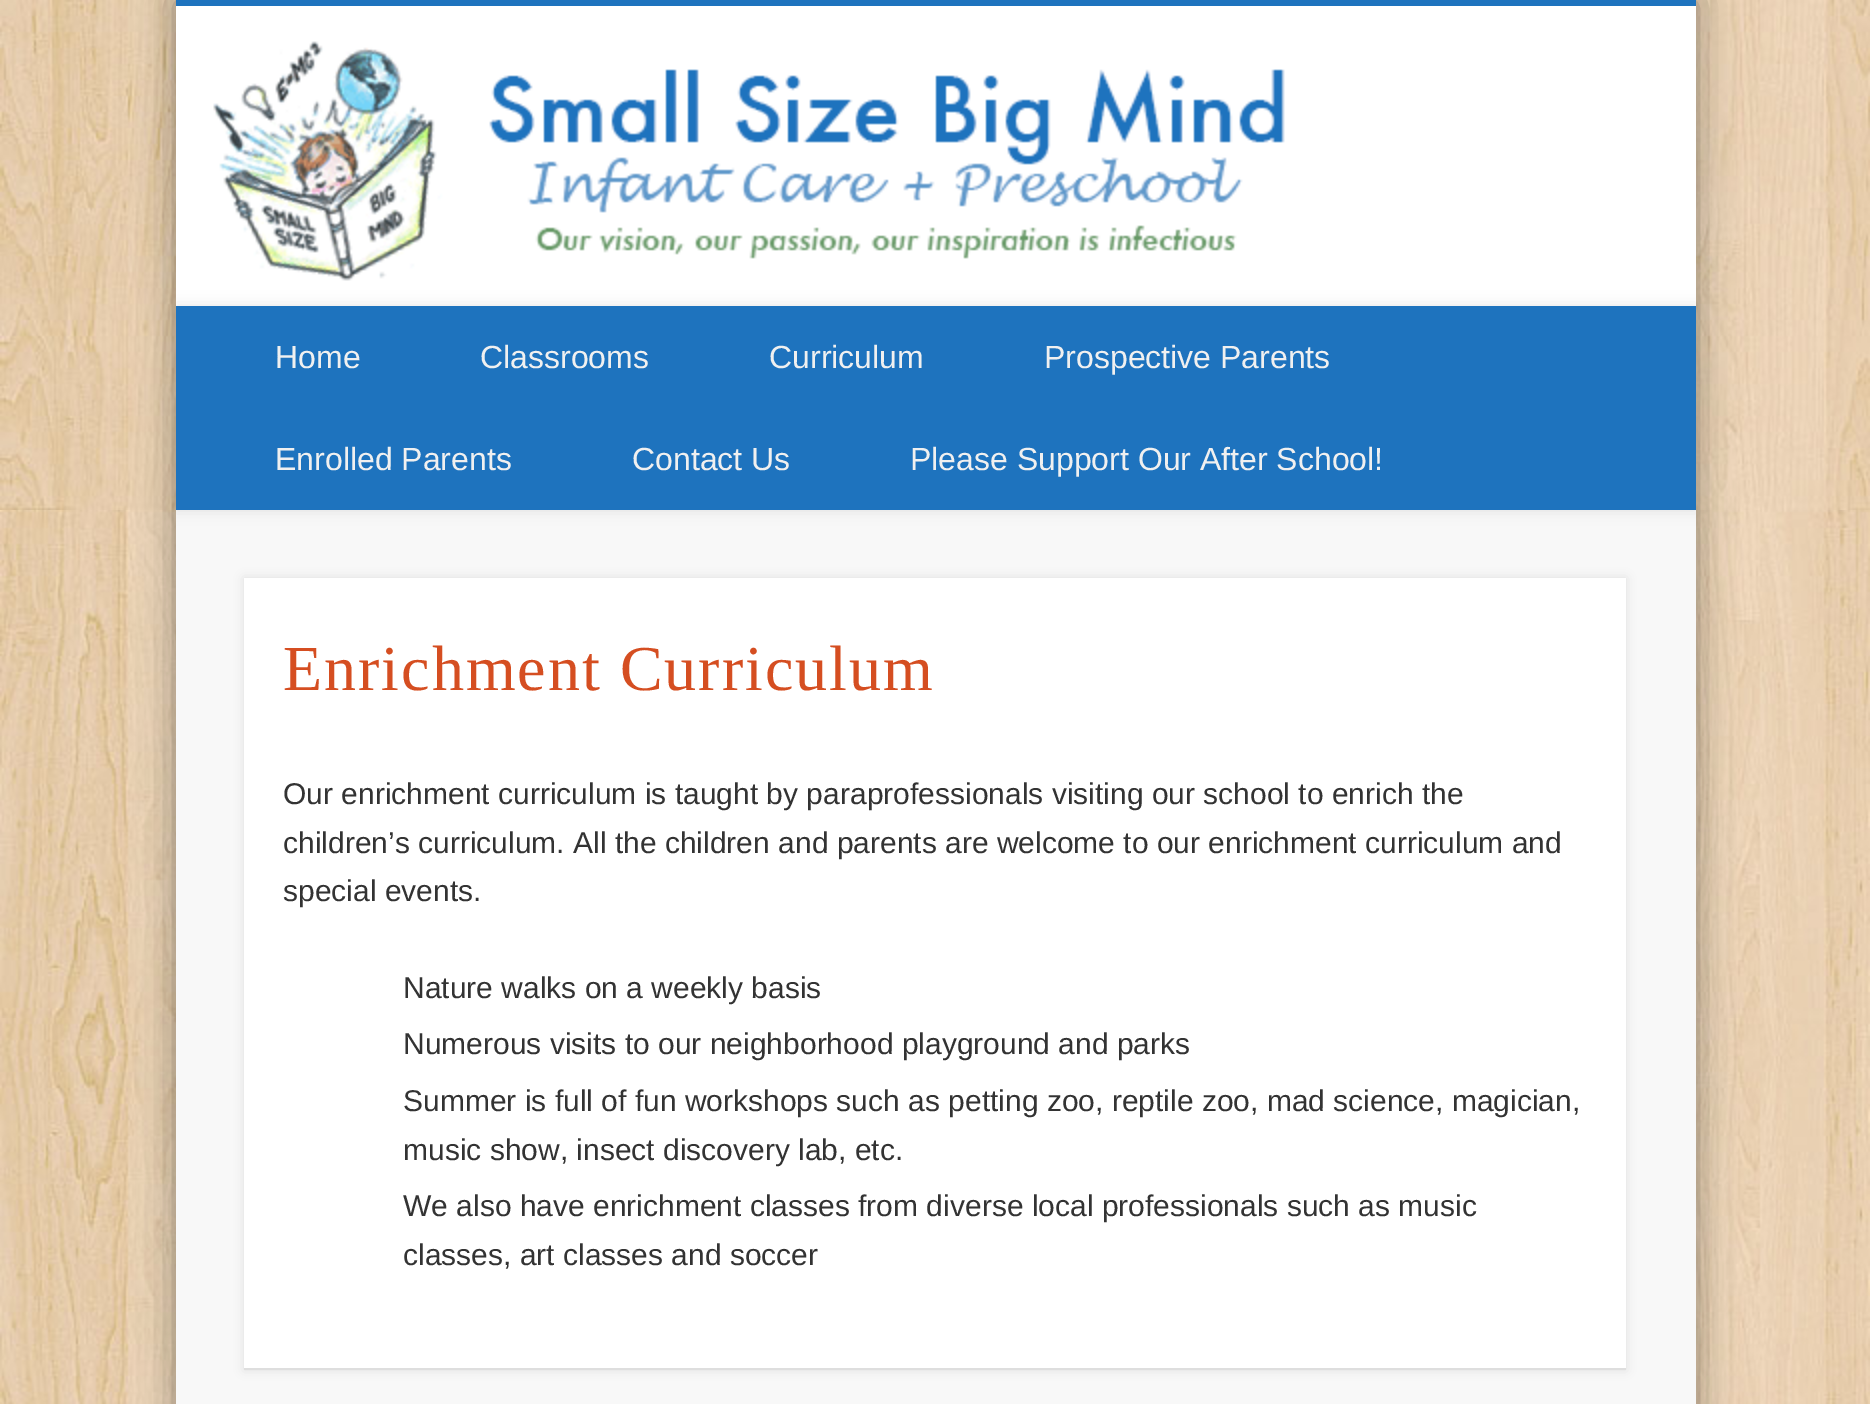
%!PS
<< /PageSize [1870 1404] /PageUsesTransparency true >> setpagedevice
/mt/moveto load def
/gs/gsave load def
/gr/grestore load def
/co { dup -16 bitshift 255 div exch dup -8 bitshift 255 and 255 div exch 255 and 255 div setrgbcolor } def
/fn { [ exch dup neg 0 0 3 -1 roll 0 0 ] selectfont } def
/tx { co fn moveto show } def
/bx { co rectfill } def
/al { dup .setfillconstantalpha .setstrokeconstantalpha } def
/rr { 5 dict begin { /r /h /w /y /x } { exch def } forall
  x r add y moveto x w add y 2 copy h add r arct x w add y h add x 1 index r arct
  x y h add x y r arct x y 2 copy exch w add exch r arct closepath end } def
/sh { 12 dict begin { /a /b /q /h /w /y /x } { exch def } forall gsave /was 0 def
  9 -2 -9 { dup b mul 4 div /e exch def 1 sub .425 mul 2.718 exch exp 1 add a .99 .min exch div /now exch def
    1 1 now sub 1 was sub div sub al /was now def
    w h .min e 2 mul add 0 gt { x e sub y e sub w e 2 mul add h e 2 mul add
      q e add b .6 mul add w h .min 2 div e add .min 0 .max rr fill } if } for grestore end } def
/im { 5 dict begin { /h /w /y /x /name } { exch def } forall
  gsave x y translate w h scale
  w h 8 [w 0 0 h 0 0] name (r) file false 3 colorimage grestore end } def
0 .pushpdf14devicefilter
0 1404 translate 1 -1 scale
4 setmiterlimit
0 0 1870 1404 16#FFFFFF bx
(media/1.raw) 0 0 1870 1404 im
16#000000 co
176 0 1520 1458 0 18 .4 sh
176 510 1520 894 16#F8F8F8 bx
176 6 1520 300 16#FFFFFF bx
176 0 1520 6 16#1E73BE bx
(media/2.raw) 213 41 1072 240 im
gs
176 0 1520 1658 rectclip
16#000000 co
176 306 1520 204 0 7 .1 sh
gr
176 306 1520 204 16#1E73BE bx
16#000000 co
244 578 1382 792 0 5 .1 sh
244 578 1382 790 16#FFFFFF bx
244 1368 1382 2 16#DEDEDE bx
(Home) 275 368 /LiberationSans-Regular 32 16#F0F0F0 tx
(Classrooms) 480 368 /LiberationSans-Regular 32 16#F0F0F0 tx
(Curriculum) 769 368 /LiberationSans-Regular 32 16#F0F0F0 tx
(Prospective Parents) 1044 368 /LiberationSans-Regular 32 16#F0F0F0 tx
(Enrolled Parents) 275 470 /LiberationSans-Regular 32 16#F0F0F0 tx
(Contact Us) 632 470 /LiberationSans-Regular 32 16#F0F0F0 tx
(Please Support Our After School!) 910 470 /LiberationSans-Regular 32 16#F0F0F0 tx
/LiberationSerif-Regular 64 fn
16#D54E21 co
283 690 mt 2 0 (Enrichment Curriculum) ashow
(Our enrichment curriculum is taught by paraprofessionals visiting our school to enrich the) 283 804 /LiberationSans-Regular 30 16#333333 tx
(children’s curriculum. All the children and parents are welcome to our enrichment curriculum and) 283 853 /LiberationSans-Regular 30 16#333333 tx
(special events.) 283 901 /LiberationSans-Regular 30 16#333333 tx
(Nature walks on a weekly basis) 403 998 /LiberationSans-Regular 30 16#333333 tx
(Numerous visits to our neighborhood playground and parks) 403 1054 /LiberationSans-Regular 30 16#333333 tx
(Summer is full of fun workshops such as petting zoo, reptile zoo, mad science, magician,) 403 1111 /LiberationSans-Regular 30 16#333333 tx
(music show, insect discovery lab, etc.) 403 1160 /LiberationSans-Regular 30 16#333333 tx
(We also have enrichment classes from diverse local professionals such as music) 403 1216 /LiberationSans-Regular 30 16#333333 tx
(classes, art classes and soccer) 403 1265 /LiberationSans-Regular 30 16#333333 tx
.poppdf14devicefilter showpage
